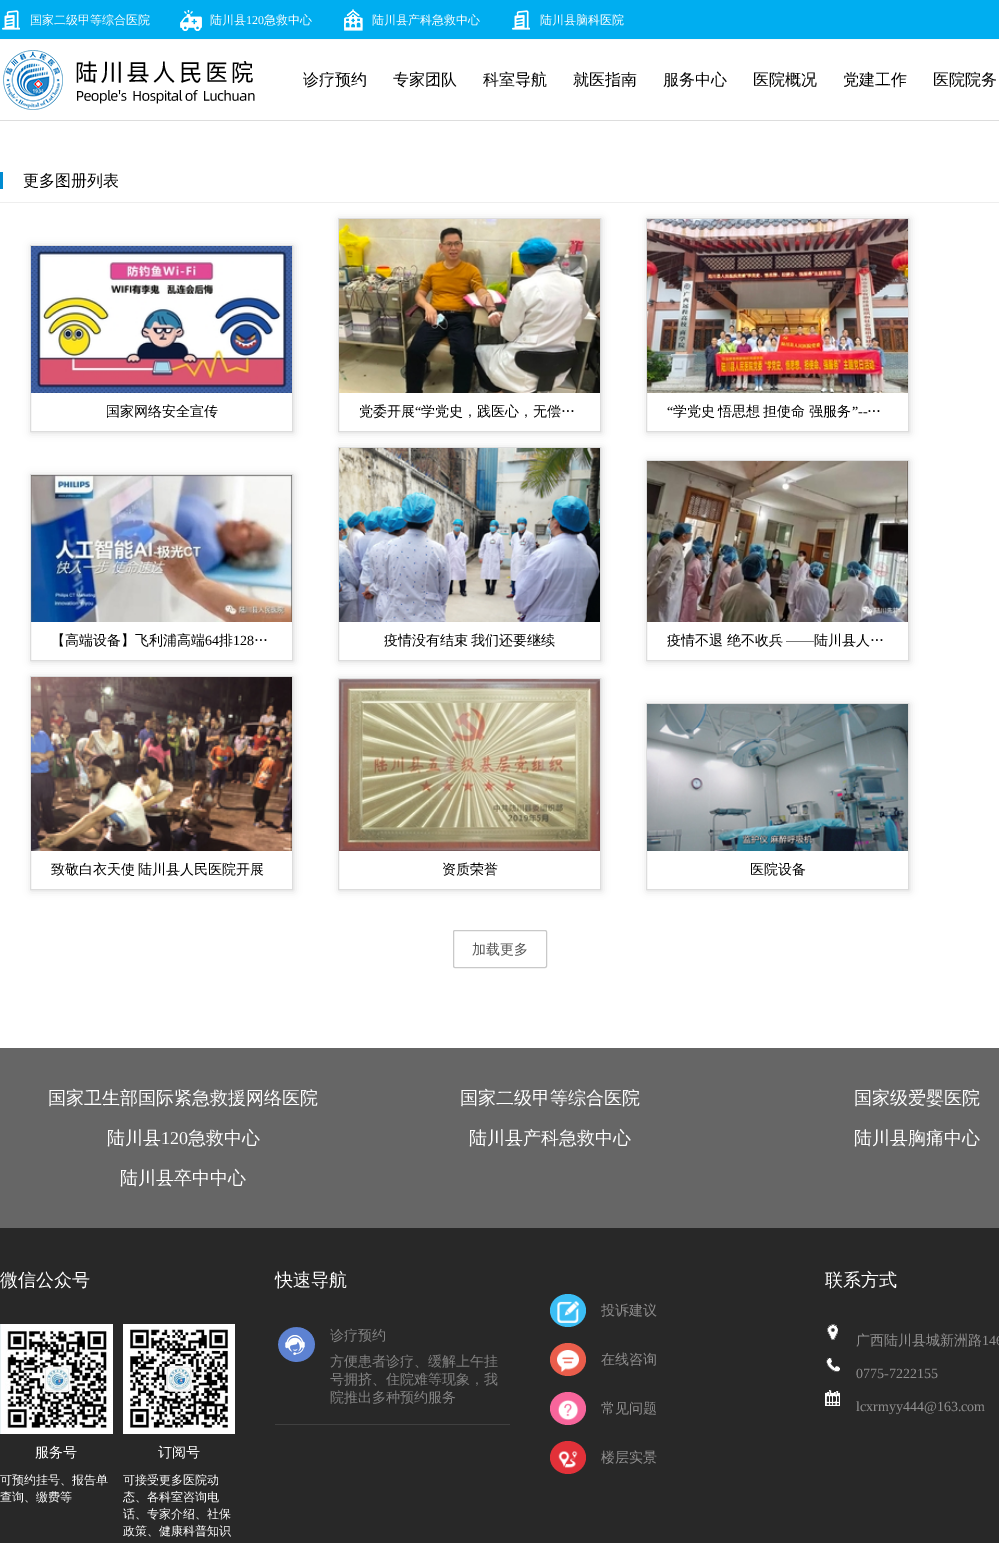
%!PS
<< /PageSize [999 1543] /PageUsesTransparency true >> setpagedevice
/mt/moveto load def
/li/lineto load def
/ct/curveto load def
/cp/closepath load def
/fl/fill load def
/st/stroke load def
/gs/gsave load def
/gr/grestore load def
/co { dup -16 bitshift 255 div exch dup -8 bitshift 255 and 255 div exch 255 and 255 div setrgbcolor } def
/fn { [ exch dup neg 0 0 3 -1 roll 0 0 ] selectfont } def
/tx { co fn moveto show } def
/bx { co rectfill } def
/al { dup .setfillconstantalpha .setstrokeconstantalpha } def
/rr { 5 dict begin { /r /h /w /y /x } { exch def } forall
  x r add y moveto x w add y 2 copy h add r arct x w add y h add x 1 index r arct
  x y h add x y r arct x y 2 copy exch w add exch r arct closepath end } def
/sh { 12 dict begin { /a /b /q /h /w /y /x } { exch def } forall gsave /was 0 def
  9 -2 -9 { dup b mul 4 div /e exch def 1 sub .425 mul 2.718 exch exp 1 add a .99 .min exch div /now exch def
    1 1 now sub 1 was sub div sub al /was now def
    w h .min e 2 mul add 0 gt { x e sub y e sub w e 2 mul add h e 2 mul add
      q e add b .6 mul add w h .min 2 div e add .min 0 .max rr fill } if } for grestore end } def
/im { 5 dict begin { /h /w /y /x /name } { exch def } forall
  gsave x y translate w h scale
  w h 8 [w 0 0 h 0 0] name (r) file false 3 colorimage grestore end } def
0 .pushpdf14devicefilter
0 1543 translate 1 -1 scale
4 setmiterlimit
0 0 999 1543 16#FFFFFF bx
0 120 999 1 16#DDDDDD bx
0 0 999 39 16#00AEF0 bx
0 39 999 1 16#F9F9F9 bx
(media/1.raw) 2 10 18 20 im
(media/2.raw) 180 10 22 21 im
(media/3.raw) 344 9 19 22 im
(media/1.raw) 512 10 18 20 im
(media/4.raw) 3 50 252 60 im
0 202 999 1 16#EEEEEE bx
0 172 3 17 16#008BD1 bx
gs
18 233 mt 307 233 li 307 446 li 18 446 li cp 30 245 mt 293 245 li 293 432 li 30 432 li cp eoclip newpath
16#DDDDDD co
31 246 263 187 0 4 1 sh
gr
16#DDDDDD co
30.5 245.5 262 186 rectstroke
(media/5.raw) 31 246 261 147 im
gs
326 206 mt 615 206 li 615 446 li 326 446 li cp 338 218 mt 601 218 li 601 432 li 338 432 li cp eoclip newpath
339 219 263 214 0 4 1 sh
gr
338.5 218.5 262 213 rectstroke
(media/6.raw) 339 219 261 174 im
gs
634 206 mt 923 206 li 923 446 li 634 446 li cp 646 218 mt 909 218 li 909 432 li 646 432 li cp eoclip newpath
647 219 263 214 0 4 1 sh
gr
646.5 218.5 262 213 rectstroke
(media/7.raw) 647 219 261 174 im
gs
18 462 mt 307 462 li 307 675 li 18 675 li cp 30 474 mt 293 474 li 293 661 li 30 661 li cp eoclip newpath
31 475 263 187 0 4 1 sh
gr
30.5 474.5 262 186 rectstroke
(media/8.raw) 31 475 261 147 im
gs
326 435 mt 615 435 li 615 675 li 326 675 li cp 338 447 mt 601 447 li 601 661 li 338 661 li cp eoclip newpath
339 448 263 214 0 4 1 sh
gr
338.5 447.5 262 213 rectstroke
(media/9.raw) 339 448 261 174 im
gs
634 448 mt 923 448 li 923 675 li 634 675 li cp 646 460 mt 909 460 li 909 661 li 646 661 li cp eoclip newpath
647 461 263 201 0 4 1 sh
gr
646.5 460.5 262 200 rectstroke
(media/10.raw) 647 461 261 161 im
gs
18 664 mt 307 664 li 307 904 li 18 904 li cp 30 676 mt 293 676 li 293 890 li 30 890 li cp eoclip newpath
31 677 263 214 0 4 1 sh
gr
30.5 676.5 262 213 rectstroke
(media/11.raw) 31 677 261 174 im
gs
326 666 mt 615 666 li 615 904 li 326 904 li cp 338 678 mt 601 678 li 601 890 li 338 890 li cp eoclip newpath
339 679 263 212 0 4 1 sh
gr
338.5 678.5 262 211 rectstroke
(media/12.raw) 339 679 261 172 im
gs
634 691 mt 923 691 li 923 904 li 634 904 li cp 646 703 mt 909 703 li 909 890 li 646 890 li cp eoclip newpath
647 704 263 187 0 4 1 sh
gr
646.5 703.5 262 186 rectstroke
(media/13.raw) 647 704 261 147 im
16#C9C9C9 co
453.5 930.5 93 37 1.5 rr st
0 1048 999 180 16#666666 bx
0 1228 999 315 16#282828 bx
(media/14.raw) 0 1324 113 110 im
(media/15.raw) 123 1324 112 110 im
(media/16.raw) 278 1327 37 35 im
275 1424 235 1 16#404040 bx
16#3BBEF5 co
568 1294 mt 578 1294 586 1301.5 586 1310.5 ct 586 1319.5 578 1327 568 1327 ct 558 1327 550 1319.5 550 1310.5 ct 550 1301.5 558 1294 568 1294 ct cp fl
(media/17.raw) 557 1301 22 22 im
16#EA5D4B co
568 1343 mt 578 1343 586 1350.5 586 1359.5 ct 586 1368.5 578 1376 568 1376 ct 558 1376 550 1368.5 550 1359.5 ct 550 1350.5 558 1343 568 1343 ct cp fl
(media/18.raw) 557 1350 22 22 im
16#F7659B co
568 1392 mt 578 1392 586 1399.5 586 1408.5 ct 586 1417.5 578 1425 568 1425 ct 558 1425 550 1417.5 550 1408.5 ct 550 1399.5 558 1392 568 1392 ct cp fl
(media/19.raw) 558 1400 21 21 im
16#E23139 co
568 1441 mt 578 1441 586 1448.5 586 1457.5 ct 586 1466.5 578 1474 568 1474 ct 558 1474 550 1466.5 550 1457.5 ct 550 1448.5 558 1441 568 1441 ct cp fl
(media/20.raw) 558 1451 20 17 im
(media/21.raw) 827 1324 11 16 im
(media/22.raw) 826 1358 14 14 im
(media/23.raw) 825 1390 15 16 im
(国家二级甲等综合医院) 30 24 /WenQuanYiZenHei-Medium 12 16#FFFFFF tx
(陆川县) 210 24 /WenQuanYiZenHei-Medium 12 16#FFFFFF tx
(120) 246 24 /LiberationSerif-Regular 12 16#FFFFFF tx
(急救中心) 264 24 /WenQuanYiZenHei-Medium 12 16#FFFFFF tx
(陆川县产科急救中心) 372 24 /WenQuanYiZenHei-Medium 12 16#FFFFFF tx
(陆川县脑科医院) 540 24 /WenQuanYiZenHei-Medium 12 16#FFFFFF tx
(诊疗预约) 303 85 /WenQuanYiZenHei-Medium 16 16#000000 tx
(专家团队) 393 85 /WenQuanYiZenHei-Medium 16 16#000000 tx
(科室导航) 483 85 /WenQuanYiZenHei-Medium 16 16#000000 tx
(就医指南) 573 85 /WenQuanYiZenHei-Medium 16 16#000000 tx
(服务中心) 663 85 /WenQuanYiZenHei-Medium 16 16#000000 tx
(医院概况) 753 85 /WenQuanYiZenHei-Medium 16 16#000000 tx
(党建工作) 843 85 /WenQuanYiZenHei-Medium 16 16#000000 tx
(医院院务) 933 85 /WenQuanYiZenHei-Medium 16 16#000000 tx
(更多图册列表) 23 186 /WenQuanYiZenHei-Medium 16 16#000000 tx
(国家网络安全宣传) 106 416 /WenQuanYiZenHei-Medium 14 16#000000 tx
(党委开展) 359 416 /WenQuanYiZenHei-Medium 14 16#000000 tx
(“) 415 416 /LiberationSerif-Regular 14 16#000000 tx
(学党史，践医心，无偿…) 421 416 /WenQuanYiZenHei-Medium 14 16#000000 tx
(“) 667 416 /LiberationSerif-Regular 14 16#000000 tx
/WenQuanYiZenHei-Medium 14 fn
673 416 mt -1 0 32 (学党史 悟思想 担使命 强服务) widthshow
(”--) 852 416 /LiberationSerif-Regular 14 16#000000 tx
(…) 867 416 /WenQuanYiZenHei-Medium 14 16#000000 tx
(【高端设备】飞利浦高端) 51 645 /WenQuanYiZenHei-Medium 14 16#000000 tx
(64) 205 645 /LiberationSerif-Regular 14 16#000000 tx
(排) 219 645 /WenQuanYiZenHei-Medium 14 16#000000 tx
(128) 233 645 /LiberationSerif-Regular 14 16#000000 tx
(…) 254 645 /WenQuanYiZenHei-Medium 14 16#000000 tx
384 645 mt -1 0 32 (疫情没有结束 我们还要继续) widthshow
(疫情不退 绝不收兵) 667 645 /WenQuanYiZenHei-Medium 14 16#000000 tx
(——) 786 645 /LiberationSerif-Regular 14 16#000000 tx
(陆川县人…) 814 645 /WenQuanYiZenHei-Medium 14 16#000000 tx
51 874 mt -1 0 32 (致敬白衣天使 陆川县人民医院开展) widthshow
(资质荣誉) 442 874 /WenQuanYiZenHei-Medium 14 16#000000 tx
(医院设备) 750 874 /WenQuanYiZenHei-Medium 14 16#000000 tx
(加载更多) 472 954 /WenQuanYiZenHei-Medium 14 16#555555 tx
(国家卫生部国际紧急救援网络医院) 48 1104 /WenQuanYiZenHei-Medium 18 16#FFFFFF tx
(国家二级甲等综合医院) 460 1104 /WenQuanYiZenHei-Medium 18 16#FFFFFF tx
(国家级爱婴医院) 854 1104 /WenQuanYiZenHei-Medium 18 16#FFFFFF tx
(陆川县) 107 1144 /WenQuanYiZenHei-Medium 18 16#FFFFFF tx
(120) 161 1144 /LiberationSerif-Regular 18 16#FFFFFF tx
(急救中心) 188 1144 /WenQuanYiZenHei-Medium 18 16#FFFFFF tx
(陆川县产科急救中心) 469 1144 /WenQuanYiZenHei-Medium 18 16#FFFFFF tx
(陆川县胸痛中心) 854 1144 /WenQuanYiZenHei-Medium 18 16#FFFFFF tx
(陆川县卒中中心) 120 1184 /WenQuanYiZenHei-Medium 18 16#FFFFFF tx
(微信公众号) 0 1286 /WenQuanYiZenHei-Medium 18 16#FFFFFF tx
(服务号) 35 1457 /WenQuanYiZenHei-Medium 14 16#FFFFFF tx
(可预约挂号、报告单) 0 1484 /WenQuanYiZenHei-Medium 12 16#FFFFFF tx
(查询、缴费等) 0 1501 /WenQuanYiZenHei-Medium 12 16#FFFFFF tx
(订阅号) 158 1457 /WenQuanYiZenHei-Medium 14 16#FFFFFF tx
(可接受更多医院动) 123 1484 /WenQuanYiZenHei-Medium 12 16#FFFFFF tx
(态、各科室咨询电) 123 1501 /WenQuanYiZenHei-Medium 12 16#FFFFFF tx
(话、专家介绍、社保) 123 1518 /WenQuanYiZenHei-Medium 12 16#FFFFFF tx
(政策、健康科普知识) 123 1535 /WenQuanYiZenHei-Medium 12 16#FFFFFF tx
(快速导航) 275 1286 /WenQuanYiZenHei-Medium 18 16#FFFFFF tx
(诊疗预约) 330 1340 /WenQuanYiZenHei-Medium 14 16#828282 tx
(方便患者诊疗、缓解上午挂) 330 1366 /WenQuanYiZenHei-Medium 14 16#828282 tx
(号拥挤、住院难等现象，我) 330 1384 /WenQuanYiZenHei-Medium 14 16#828282 tx
(院推出多种预约服务) 330 1402 /WenQuanYiZenHei-Medium 14 16#828282 tx
(投诉建议) 601 1315 /WenQuanYiZenHei-Medium 14 16#908F8F tx
(在线咨询) 601 1364 /WenQuanYiZenHei-Medium 14 16#908F8F tx
(常见问题) 601 1413 /WenQuanYiZenHei-Medium 14 16#908F8F tx
(楼层实景) 601 1462 /WenQuanYiZenHei-Medium 14 16#908F8F tx
(联系方式) 825 1286 /WenQuanYiZenHei-Medium 18 16#FFFFFF tx
(广西陆川县城新洲路) 856 1345 /WenQuanYiZenHei-Medium 14 16#908F8F tx
(146) 982 1345 /LiberationSerif-Regular 14 16#908F8F tx
(0775-7222155) 856 1378 /LiberationSerif-Regular 14 16#908F8F tx
(lcxrmyy444@163.com) 856 1411 /LiberationSerif-Regular 14 16#908F8F tx
.poppdf14devicefilter showpage
